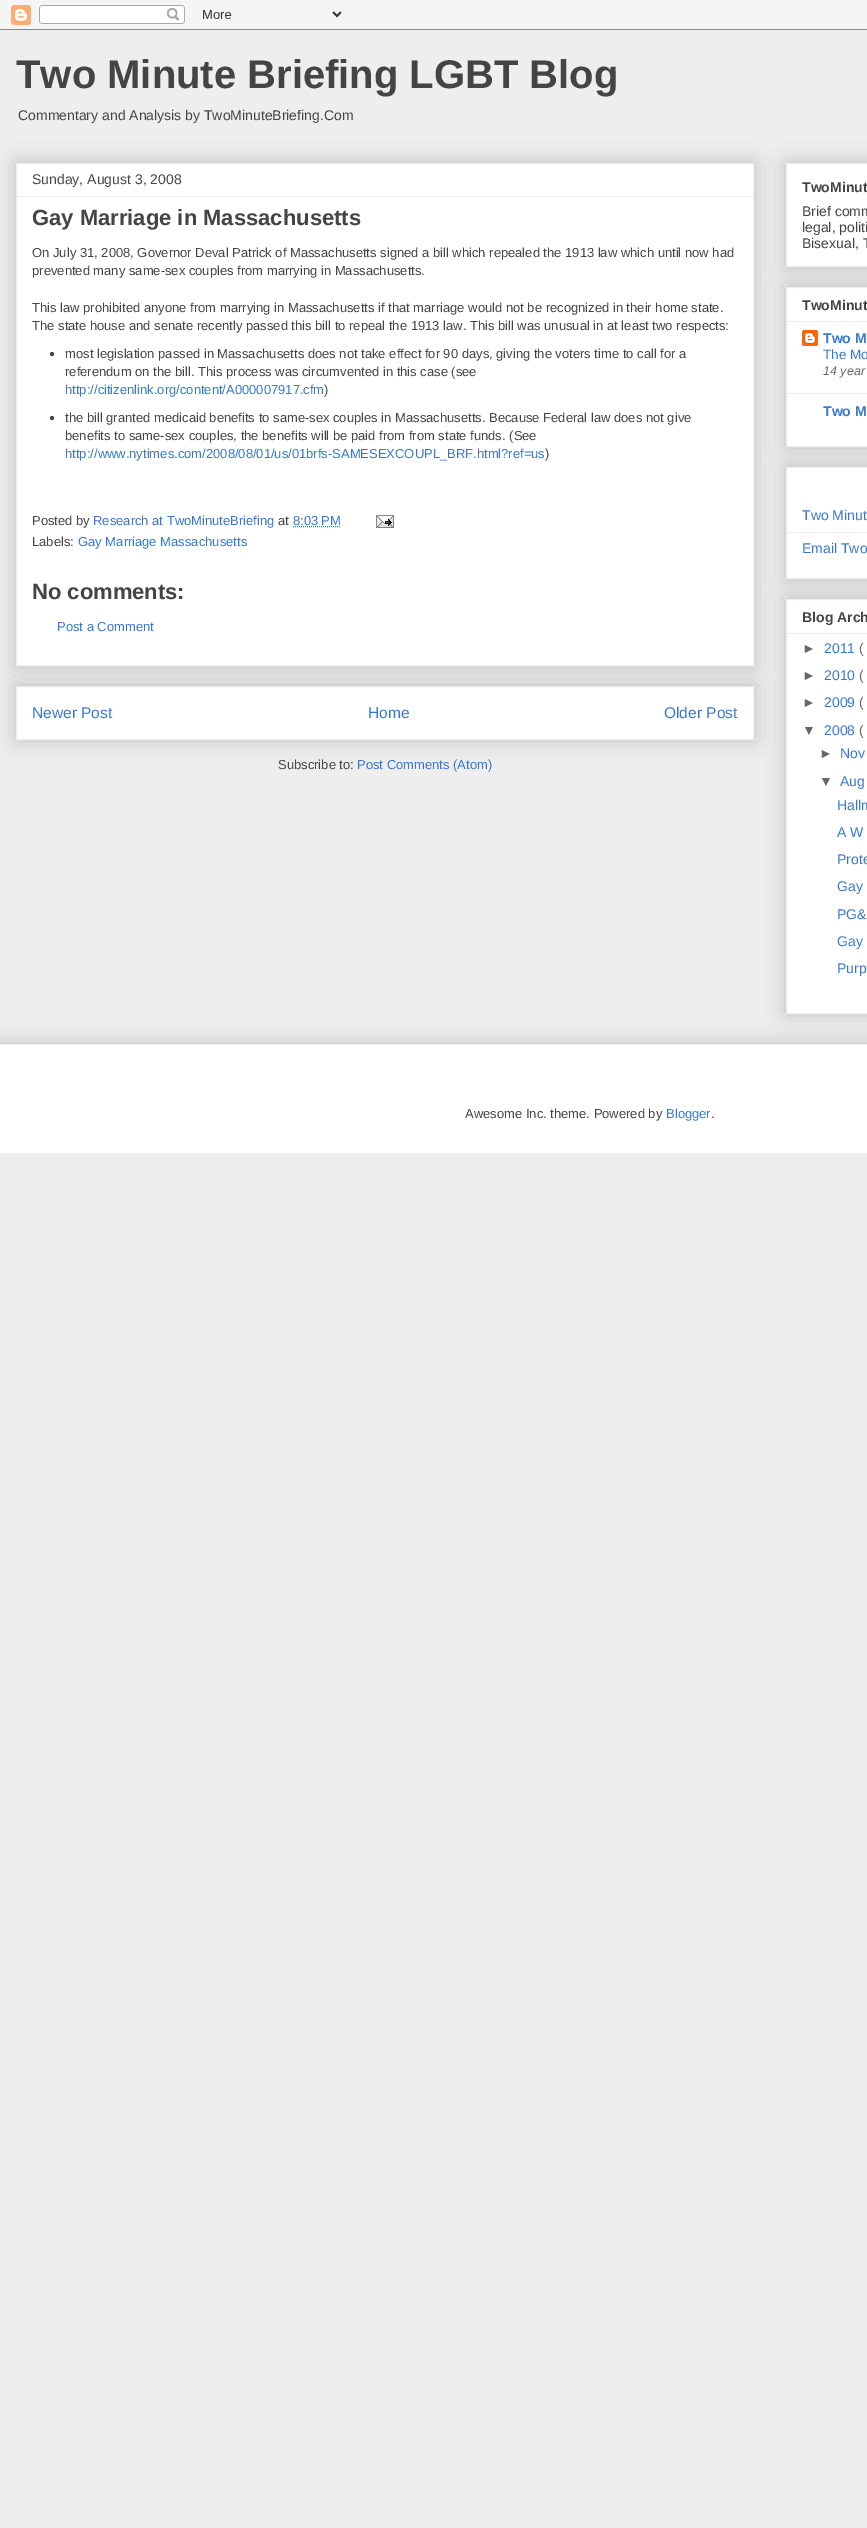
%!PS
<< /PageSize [867 2528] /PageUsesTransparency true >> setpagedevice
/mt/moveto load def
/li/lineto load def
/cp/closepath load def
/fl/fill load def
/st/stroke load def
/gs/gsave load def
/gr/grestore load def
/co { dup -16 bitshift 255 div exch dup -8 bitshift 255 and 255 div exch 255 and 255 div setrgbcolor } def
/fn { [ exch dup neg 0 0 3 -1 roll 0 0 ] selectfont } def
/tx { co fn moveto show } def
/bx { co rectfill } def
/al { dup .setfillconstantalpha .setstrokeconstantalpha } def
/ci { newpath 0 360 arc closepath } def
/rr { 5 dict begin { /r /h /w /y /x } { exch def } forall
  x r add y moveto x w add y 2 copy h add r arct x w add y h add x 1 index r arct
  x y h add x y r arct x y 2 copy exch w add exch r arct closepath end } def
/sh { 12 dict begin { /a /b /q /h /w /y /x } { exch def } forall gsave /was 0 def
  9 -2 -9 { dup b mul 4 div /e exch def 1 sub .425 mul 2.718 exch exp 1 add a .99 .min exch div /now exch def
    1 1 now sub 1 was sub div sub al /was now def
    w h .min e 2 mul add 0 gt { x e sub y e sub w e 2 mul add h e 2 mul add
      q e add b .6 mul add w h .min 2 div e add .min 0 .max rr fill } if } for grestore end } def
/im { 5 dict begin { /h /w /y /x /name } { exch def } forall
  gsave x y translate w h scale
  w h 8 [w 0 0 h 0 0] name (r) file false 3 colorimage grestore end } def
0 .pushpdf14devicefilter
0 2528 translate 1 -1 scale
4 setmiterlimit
0 0 867 2528 16#EEEEEE bx
(media/1.raw) 0 0 867 30 im
16#000000 co
16 686 738 54 0 10 .2 sh
16#FFFFFF co
16.5 686.5 mt 753.5 686.5 li 753.5 739.5 li 16.5 739.5 li cp gs fl gr
16#EEEEEE co
st
16#000000 co
16 163 738 503 0 10 .2 sh
16#FFFFFF co
16.5 163.5 mt 753.5 163.5 li 753.5 665.5 li 16.5 665.5 li cp gs fl gr
16#EEEEEE co
st
17 196 736 1 16#EEEEEE bx
16#444444 co
52 354 2 ci fl
52 418 2 ci fl
16#3778CD co
[1 1] 0 setdash
293 526.5 mt 340.5 526.5 li st
(media/2.raw) 376 515 18 13 im
16#000000 co
786 163 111 104 0 10 .2 sh
16#FFFFFF co
786.5 163.5 mt 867.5 163.5 li 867.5 266.5 li 786.5 266.5 li cp gs fl gr
16#EEEEEE co
[] 0 setdash
st
16#000000 co
786 287 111 160 0 10 .2 sh
16#FFFFFF co
786.5 287.5 mt 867.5 287.5 li 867.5 446.5 li 786.5 446.5 li cp gs fl gr
16#EEEEEE co
st
787 321 80 1 16#EEEEEE bx
(media/3.raw) 802 330 16 16 im
787 393 80 1 16#EEEEEE bx
16#000000 co
786 467 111 112 0 10 .2 sh
16#FFFFFF co
786.5 467.5 mt 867.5 467.5 li 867.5 578.5 li 786.5 578.5 li cp gs fl gr
16#EEEEEE co
st
787 532 80 1 16#EEEEEE bx
16#000000 co
786 599 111 415 0 10 .2 sh
16#FFFFFF co
786.5 599.5 mt 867.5 599.5 li 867.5 1013.5 li 786.5 1013.5 li cp gs fl gr
16#EEEEEE co
st
787 633 80 1 16#EEEEEE bx
gs
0 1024 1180 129 rectclip
16#000000 co
-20 1044 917 109 0 10 .2 sh
gr
0 1045 867 108 16#FFFFFF bx
0 1044 867 1 16#EEEEEE bx
(Two Minute Briefing LGBT Blog) 16 88 /LiberationSans-Bold 40 16#444444 tx
(Commentary and Analysis by TwoMinuteBriefing.Com) 18 120 /LiberationSans-Regular 14 16#444444 tx
(Sunday, August 3, 2008) 32 184 /LiberationSans-Regular 14 16#444444 tx
(Gay Marriage in Massachusetts) 32 225 /LiberationSans-Bold 22 16#444444 tx
(On July 31, 2008, Governor Deval Patrick of Massachusetts signed a bill which repealed the 1913 law which until now had) 32 257 /LiberationSans-Regular 13 16#444444 tx
(prevented many same-sex couples from marrying in Massachusetts.) 32 275 /LiberationSans-Regular 13 16#444444 tx
(This law prohibited anyone from marrying in Massachusetts if that marriage would not be recognized in their home state.) 32 312 /LiberationSans-Regular 13 16#444444 tx
(The state house and senate recently passed this bill to repeal the 1913 law. This bill was unusual in at least two respects:) 32 330 /LiberationSans-Regular 13 16#444444 tx
(most legislation passed in Massachusetts does not take effect for 90 days, giving the voters time to call for a) 65 358 /LiberationSans-Regular 13 16#444444 tx
(referendum on the bill. This process was circumvented in this case \(see) 65 376 /LiberationSans-Regular 13 16#444444 tx
(http://citizenlink.org/content/A000007917.cfm) 65 394 /LiberationSans-Regular 13 16#3778CD tx
(\)) 324 394 /LiberationSans-Regular 13 16#444444 tx
(the bill granted medicaid benefits to same-sex couples in Massachusetts. Because Federal law does not give) 65 422 /LiberationSans-Regular 13 16#444444 tx
(benefits to same-sex couples, the benefits will be paid from from state funds. \(See) 65 440 /LiberationSans-Regular 13 16#444444 tx
(http://www.nytimes.com/2008/08/01/us/01brfs-SAMESEXCOUPL_BRF.html?ref=us) 65 458 /LiberationSans-Regular 13 16#3778CD tx
(\)) 545 458 /LiberationSans-Regular 13 16#444444 tx
(Posted by) 32 525 /LiberationSans-Regular 13 16#444444 tx
(Research at TwoMinuteBriefing) 93 525 /LiberationSans-Regular 13 16#3778CD tx
(at) 278 525 /LiberationSans-Regular 13 16#444444 tx
(8:03 PM) 293 525 /LiberationSans-Regular 13 16#3778CD tx
(Labels:) 32 546 /LiberationSans-Regular 13 16#444444 tx
(Gay Marriage Massachusetts) 78 546 /LiberationSans-Regular 13 16#3778CD tx
(No comments:) 32 599 /LiberationSans-Bold 22 16#444444 tx
(Post a Comment) 57 631 /LiberationSans-Regular 13 16#3778CD tx
(Newer Post) 32 718 /LiberationSans-Regular 15.5 16#3778CD tx
(Home) 368 718 /LiberationSans-Regular 15.5 16#3778CD tx
(Older Post) 664 718 /LiberationSans-Regular 15.5 16#3778CD tx
(Subscribe to:) 278 769 /LiberationSans-Regular 13 16#444444 tx
(Post Comments \(Atom\)) 357 769 /LiberationSans-Regular 13 16#3778CD tx
(TwoMinut) 802 192 /LiberationSans-Bold 14 16#444444 tx
(Brief comm) 802 216 /LiberationSans-Regular 14 16#444444 tx
(legal, politi) 802 232 /LiberationSans-Regular 14 16#444444 tx
(Bisexual, T) 802 248 /LiberationSans-Regular 14 16#444444 tx
(TwoMinut) 802 310 /LiberationSans-Bold 14 16#444444 tx
(Two M) 823 343 /LiberationSans-Bold 14 16#3778CD tx
(The Mo) 823 359 /LiberationSans-Regular 13.5 16#3778CD tx
(14 year) 823 375 /LiberationSans-Italic 12.5 16#666666 tx
(Two M) 823 416 /LiberationSans-Bold 14 16#3778CD tx
(Two Minut) 802 520 /LiberationSans-Regular 14 16#3778CD tx
(Email Two) 802 553 /LiberationSans-Regular 14 16#3778CD tx
(Blog Arch) 802 622 /LiberationSans-Bold 14 16#444444 tx
(►) 802 653 /LiberationSans-Regular 14 16#666666 tx
(2011) 824 653 /LiberationSans-Regular 14 16#3778CD tx
(\() 859 653 /LiberationSans-Regular 14 16#666666 tx
(►) 802 680 /LiberationSans-Regular 14 16#666666 tx
(2010) 824 680 /LiberationSans-Regular 14 16#3778CD tx
(\() 859 680 /LiberationSans-Regular 14 16#666666 tx
(►) 802 707 /LiberationSans-Regular 14 16#666666 tx
(2009) 824 707 /LiberationSans-Regular 14 16#3778CD tx
(\() 859 707 /LiberationSans-Regular 14 16#666666 tx
(▼) 802 735 /LiberationSans-Regular 14 16#666666 tx
(2008) 824 735 /LiberationSans-Regular 14 16#3778CD tx
(\() 859 735 /LiberationSans-Regular 14 16#666666 tx
(►) 819 758 /LiberationSans-Regular 14 16#666666 tx
(Nov) 840 758 /LiberationSans-Regular 14 16#3778CD tx
(▼) 819 786 /LiberationSans-Regular 14 16#666666 tx
(Aug) 840 786 /LiberationSans-Regular 14 16#3778CD tx
(Hallm) 837 810 /LiberationSans-Regular 14 16#3778CD tx
(A W) 837 837 /LiberationSans-Regular 14 16#3778CD tx
(Prote) 837 864 /LiberationSans-Regular 14 16#3778CD tx
(Gay) 837 891 /LiberationSans-Regular 14 16#3778CD tx
(PG&) 837 919 /LiberationSans-Regular 14 16#3778CD tx
(Gay) 837 946 /LiberationSans-Regular 14 16#3778CD tx
(Purp) 837 973 /LiberationSans-Regular 14 16#3778CD tx
(Awesome Inc. theme. Powered by) 465 1118 /LiberationSans-Regular 13 16#444444 tx
(Blogger) 666 1118 /LiberationSans-Regular 13 16#3778CD tx
(.) 711 1118 /LiberationSans-Regular 13 16#444444 tx
.poppdf14devicefilter showpage
